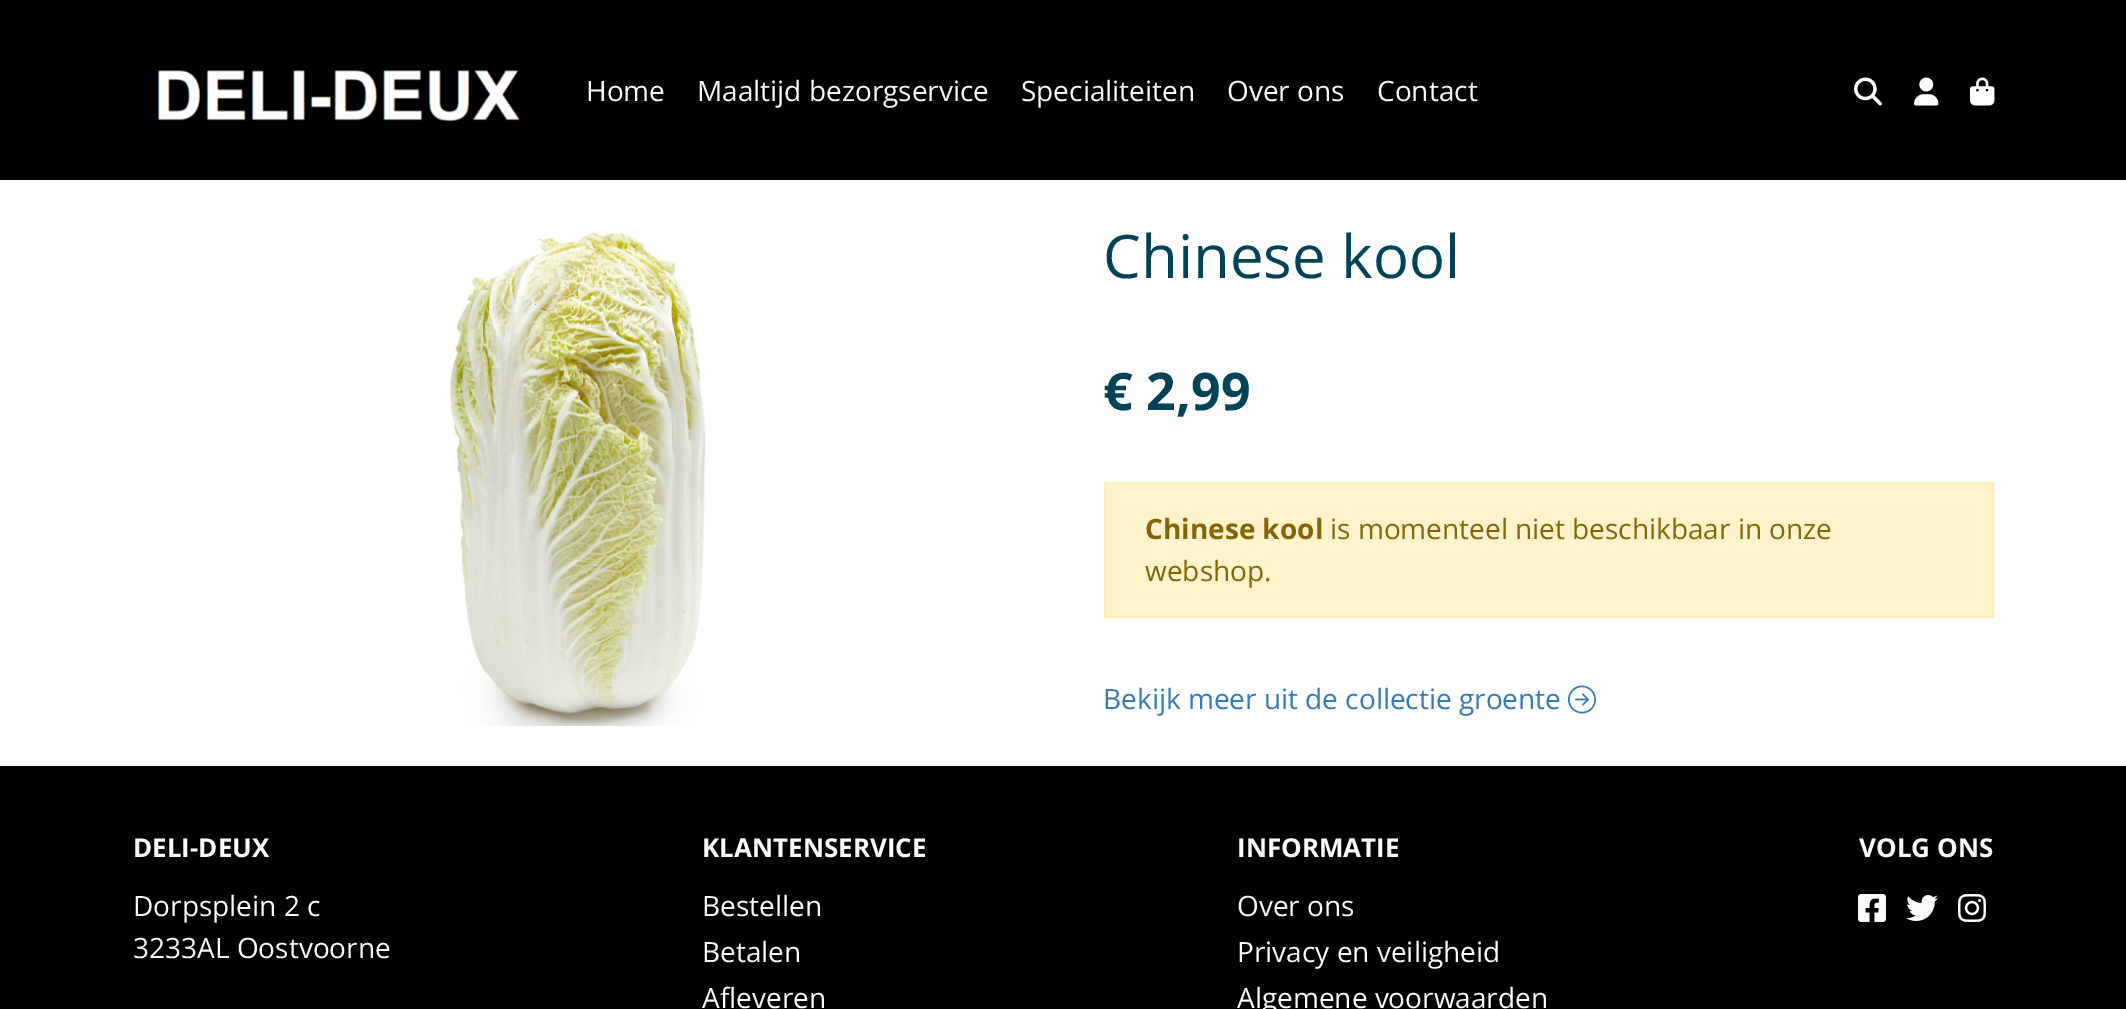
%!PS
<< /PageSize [2126 1009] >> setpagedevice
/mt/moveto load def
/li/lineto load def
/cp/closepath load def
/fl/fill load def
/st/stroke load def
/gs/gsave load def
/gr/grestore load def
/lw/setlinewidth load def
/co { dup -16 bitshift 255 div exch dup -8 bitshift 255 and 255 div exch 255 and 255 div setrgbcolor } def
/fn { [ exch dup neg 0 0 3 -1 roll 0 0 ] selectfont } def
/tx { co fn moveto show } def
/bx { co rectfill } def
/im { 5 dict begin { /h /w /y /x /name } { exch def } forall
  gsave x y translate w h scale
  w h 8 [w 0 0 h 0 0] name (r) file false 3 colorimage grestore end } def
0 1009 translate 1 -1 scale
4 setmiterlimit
0 0 2126 1009 16#FFFFFF bx
0 0 2126 180 16#000000 bx
(media/1.raw) 157 70 363 52 im
(media/2.raw) 1854 77 28 29 im
(media/3.raw) 1914 77 25 29 im
(media/4.raw) 1970 77 25 29 im
(media/5.raw) 449 232 257 494 im
16#FFF3CD co
1105 483 mt 1993 483 li 1993 617 li 1105 617 li cp gs fl gr
16#FFEEBA co
2 lw
st
(media/6.raw) 1568 685 28 29 im
0 766 2126 243 16#000000 bx
(media/7.raw) 1858 894 28 28 im
(media/8.raw) 1906 895 32 26 im
(media/9.raw) 1958 894 28 28 im
(Home) 586 101 /OpenSans-Regular 28 16#FBFBFB tx
(Maaltijd bezorgservice) 697 101 /OpenSans-Regular 28 16#FBFBFB tx
(Specialiteiten) 1021 101 /OpenSans-Regular 28 16#FBFBFB tx
(Over ons) 1227 101 /OpenSans-Regular 28 16#FBFBFB tx
(Contact) 1377 101 /OpenSans-Regular 28 16#FBFBFB tx
(Chinese kool) 1103 278 /OpenSans-Regular 60 16#004358 tx
(€ 2,99) 1103 410 /OpenSans-Bold 52 16#004358 tx
(Chinese kool) 1145 539 /OpenSans-Bold 28 16#856404 tx
(is momenteel niet beschikbaar in onze) 1330 539 /OpenSans-Regular 28 16#856404 tx
(webshop.) 1145 581 /OpenSans-Regular 28 16#856404 tx
(Bekijk meer uit de collectie groente) 1103 709 /OpenSans-Regular 28 16#337AB7 tx
(DELI-DEUX) 133 857 /OpenSans-Bold 26 16#FBFBFB tx
(Dorpsplein 2 c) 133 916 /OpenSans-Regular 28 16#FBFBFB tx
(3233AL Oostvoorne) 133 958 /OpenSans-Regular 28 16#FBFBFB tx
(KLANTENSERVICE) 702 857 /OpenSans-Bold 26 16#FBFBFB tx
(Bestellen) 702 916 /OpenSans-Regular 28 16#FBFBFB tx
(Betalen) 702 962 /OpenSans-Regular 28 16#FBFBFB tx
(Afleveren) 702 1008 /OpenSans-Regular 28 16#FBFBFB tx
(INFORMATIE) 1237 857 /OpenSans-Bold 26 16#FBFBFB tx
(Over ons) 1237 916 /OpenSans-Regular 28 16#FBFBFB tx
(Privacy en veiligheid) 1237 962 /OpenSans-Regular 28 16#FBFBFB tx
(Algemene voorwaarden) 1237 1008 /OpenSans-Regular 28 16#FBFBFB tx
(VOLG ONS) 1859 857 /OpenSans-Bold 26 16#FBFBFB tx
showpage
